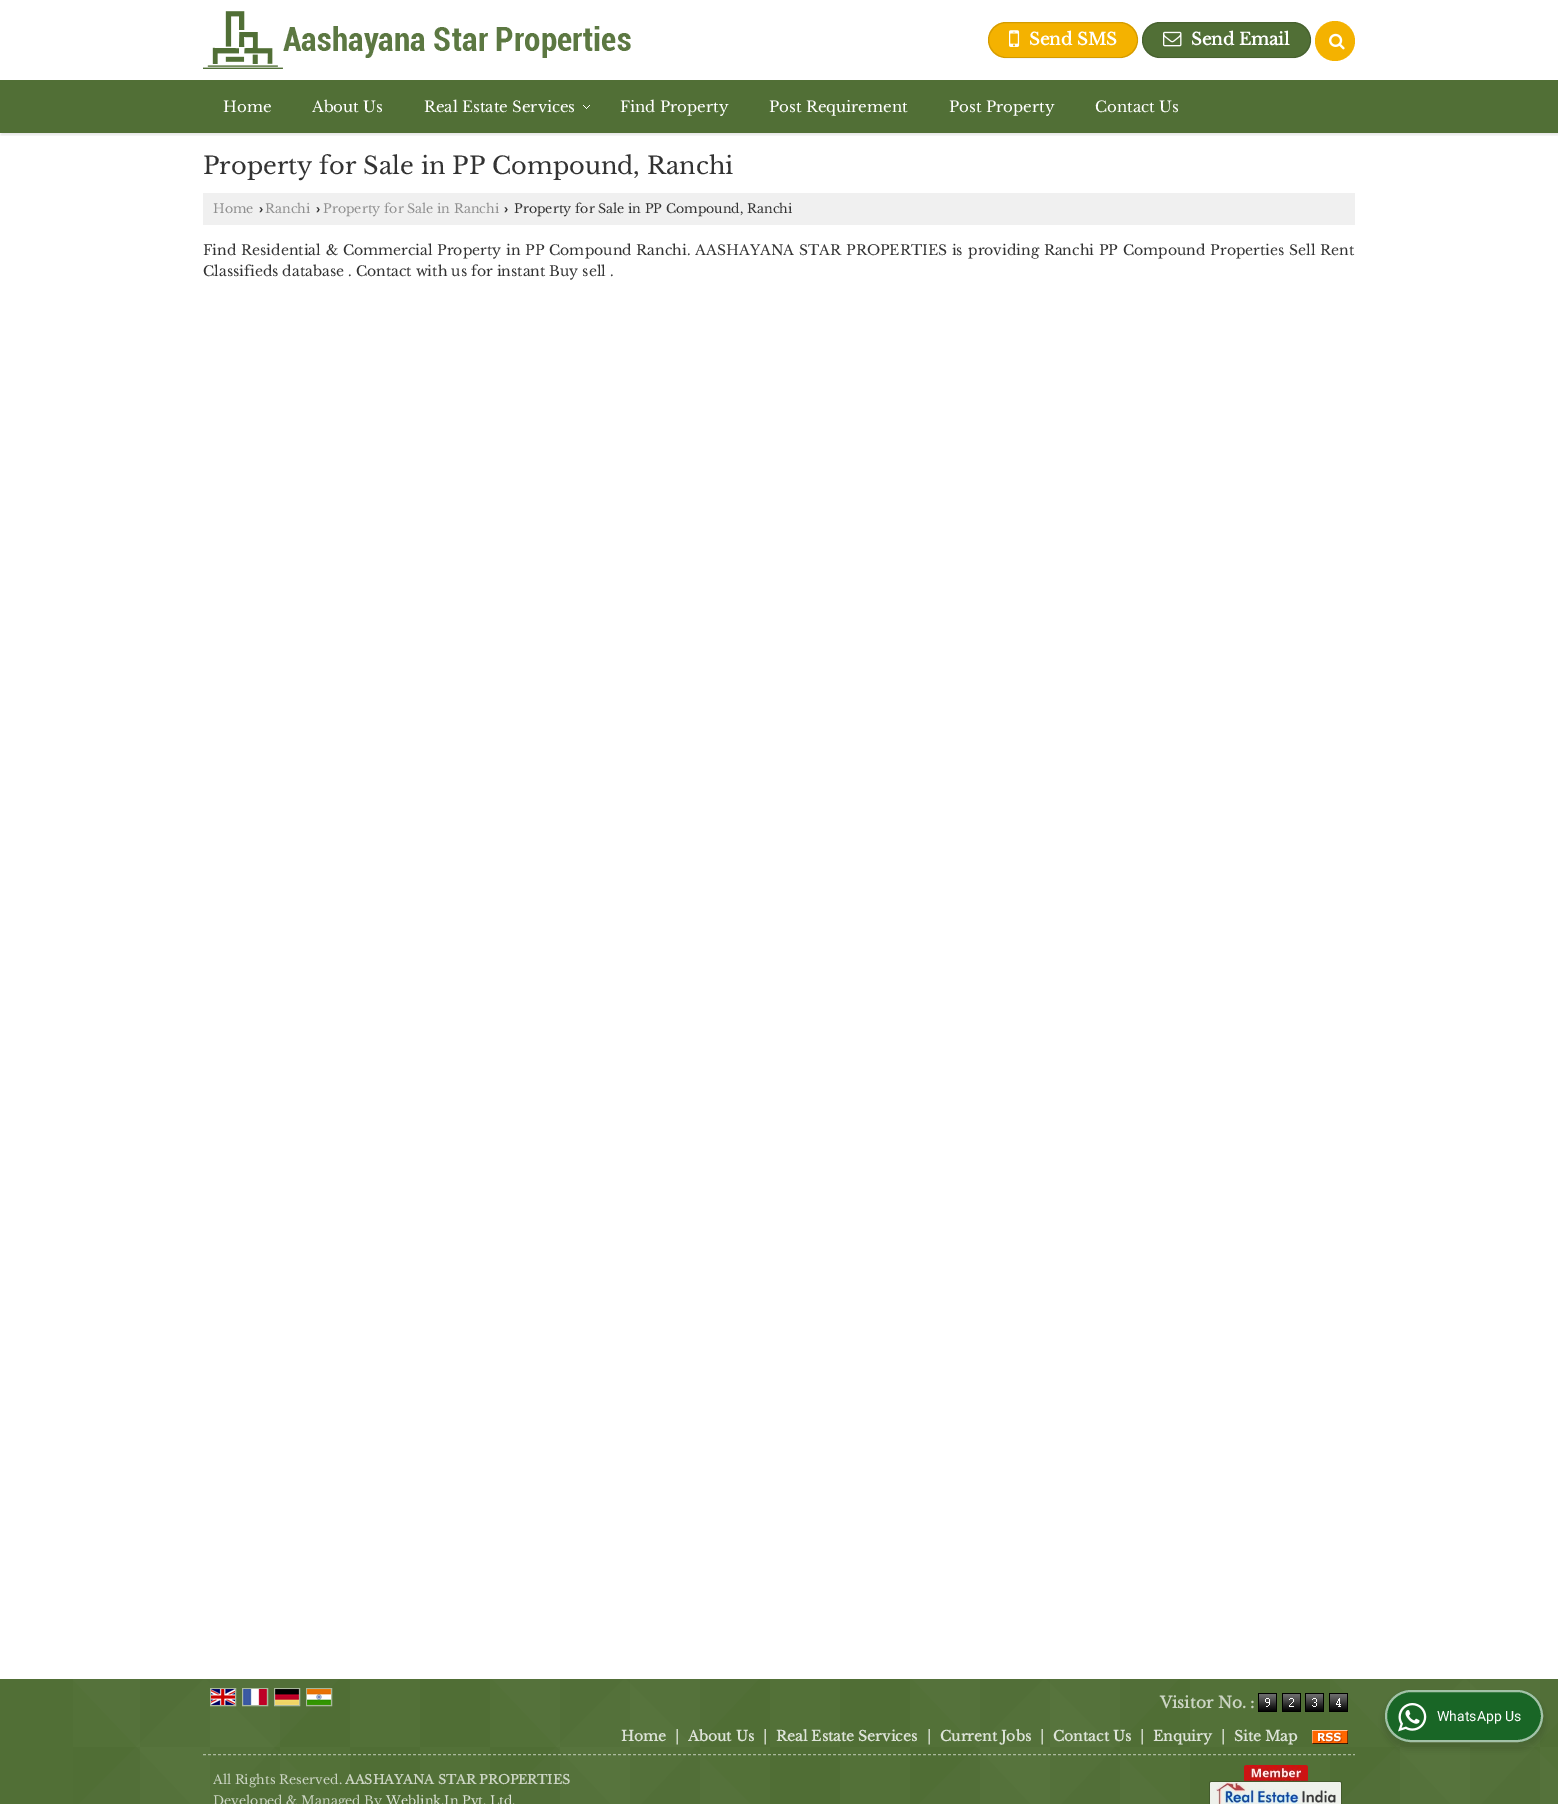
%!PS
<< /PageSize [1558 1804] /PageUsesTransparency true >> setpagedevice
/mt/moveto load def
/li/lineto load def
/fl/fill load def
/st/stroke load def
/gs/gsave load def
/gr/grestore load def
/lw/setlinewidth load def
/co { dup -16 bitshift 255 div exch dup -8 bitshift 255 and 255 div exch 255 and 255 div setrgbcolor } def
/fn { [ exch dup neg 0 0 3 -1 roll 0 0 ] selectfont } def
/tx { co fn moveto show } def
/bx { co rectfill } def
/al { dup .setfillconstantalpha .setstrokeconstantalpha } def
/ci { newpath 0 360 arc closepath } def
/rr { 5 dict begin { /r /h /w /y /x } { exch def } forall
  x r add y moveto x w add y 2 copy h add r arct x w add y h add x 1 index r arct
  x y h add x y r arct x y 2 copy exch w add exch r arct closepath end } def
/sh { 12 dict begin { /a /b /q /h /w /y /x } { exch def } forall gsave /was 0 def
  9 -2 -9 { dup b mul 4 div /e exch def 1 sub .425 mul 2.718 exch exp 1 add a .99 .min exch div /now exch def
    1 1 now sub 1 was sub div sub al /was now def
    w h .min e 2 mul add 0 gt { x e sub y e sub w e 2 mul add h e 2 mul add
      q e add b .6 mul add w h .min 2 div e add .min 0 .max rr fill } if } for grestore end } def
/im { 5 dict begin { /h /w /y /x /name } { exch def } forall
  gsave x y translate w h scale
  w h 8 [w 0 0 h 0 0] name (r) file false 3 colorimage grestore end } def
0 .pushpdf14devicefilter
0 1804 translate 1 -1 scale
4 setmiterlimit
0 0 1558 1804 16#FFFFFF bx
gs
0 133 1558 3 rectclip
16#000000 co
1 2 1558 133 0 1.5 .1 sh
gr
(media/1.raw) 203 11 428 58 im
16#F4B200 co
988 22 150 36 18 rr fl
0.13 al
16#000000 co
988.5 22.5 149 35 17.5 rr st
1 al
(media/2.raw) 1009 30 11 17 im
16#516F36 co
1142 22 169 36 18 rr fl
0.13 al
16#000000 co
1142.5 22.5 168 35 17.5 rr st
1 al
(media/3.raw) 1163 31 19 16 im
16#F4B200 co
1335 41 20 ci fl
(media/4.raw) 1329 33 16 17 im
0 80 1558 53 16#516F36 bx
(media/5.raw) 583 105 7 4 im
203 193 1152 32 16#F0F0F0 bx
0 1679 1558 125 16#516F36 bx
(media/6.raw) 73 1679 1485 125 im
16#ABB99D co
210.5 1688.5 25 17 rectstroke
16#AAB99D co
242.5 1688.5 25 17 rectstroke
0.5 al
16#FFFFFF co
274.5 1688.5 25 17 rectstroke
1 al
16#A8B79B co
306.5 1688.5 25 17 rectstroke
(media/7.raw) 211 1689 24 16 im
(media/8.raw) 243 1689 24 16 im
(media/9.raw) 275 1689 24 16 im
(media/10.raw) 307 1689 24 16 im
(media/11.raw) 1258 1693 19 19 im
(media/12.raw) 1282 1693 19 19 im
(media/13.raw) 1305 1693 19 19 im
(media/14.raw) 1329 1693 19 19 im
(media/15.raw) 1312 1730 36 14 im
0.5 al
16#FFFFFF co
[3 2] 0 setdash
203 1754.5 mt 1355 1754.5 li st
1 al
(media/16.raw) 1209 1765 133 39 im
16#000000 co
1383 1694 162 56 28 4 .14 sh
16#196626 co
1385 1690 158 52 26 rr fl
0.6 al
16#FFFFFF co
2 lw
[] 0 setdash
1386 1691 156 50 25 rr st
1 al
(media/17.raw) 1398 1703 29 29 im
(Send SMS) 1029 45 /LibreBaskerville-Bold 16.75 16#FFFFFF tx
(Send Email) 1191 45 /LibreBaskerville-Bold 16.75 16#FFFFFF tx
(Home) 223 112 /LibreBaskerville-Regular 15 16#FFFFFF tx
(About Us) 312 112 /LibreBaskerville-Regular 15 16#FFFFFF tx
(Real Estate Services) 424 112 /LibreBaskerville-Regular 15 16#FFFFFF tx
(Find Property) 620 112 /LibreBaskerville-Regular 15 16#FFFFFF tx
(Post Requirement) 769 112 /LibreBaskerville-Regular 15 16#FFFFFF tx
(Post Property) 949 112 /LibreBaskerville-Regular 15 16#FFFFFF tx
(Contact Us) 1095 112 /LibreBaskerville-Regular 15 16#FFFFFF tx
(Property for Sale in PP Compound, Ranchi) 203 174 /LibreBaskerville-Regular 24 16#333333 tx
(Home) 213 213 /LibreBaskerville-Regular 12.6 16#909090 tx
(›) 259 213 /LiberationSans-Bold 12.6 16#333333 tx
(Ranchi) 265 213 /LibreBaskerville-Regular 12.6 16#909090 tx
(›) 316 213 /LiberationSans-Bold 12.6 16#333333 tx
(Property for Sale in Ranchi) 323 213 /LibreBaskerville-Regular 12.6 16#909090 tx
(›) 504 213 /LiberationSans-Bold 12.6 16#333333 tx
(Property for Sale in PP Compound, Ranchi) 514 213 /LibreBaskerville-Regular 12.6 16#333333 tx
/LibreBaskerville-Regular 14 fn
203 255 mt .8 0 32 (Find Residential & Commercial Property in PP Compound Ranchi. AASHAYANA STAR PROPERTIES is) widthshow
968 255 mt .8 0 32 (providing Ranchi PP Compound Properties Sell Rent) widthshow
(Classifieds database . Contact with us for instant Buy sell .) 203 276 /LibreBaskerville-Regular 14 16#333333 tx
(Visitor No. :) 1160 1708 /LibreBaskerville-Bold 15.5 16#CBD4C3 tx
(Home) 621 1741 /LibreBaskerville-Bold 14 16#DDE3D8 tx
(|) 675 1741 /LibreBaskerville-Bold 14 16#CBD4C3 tx
(About Us) 688 1741 /LibreBaskerville-Bold 14 16#DDE3D8 tx
(|) 763 1741 /LibreBaskerville-Bold 14 16#CBD4C3 tx
(Real Estate Services) 776 1741 /LibreBaskerville-Bold 14 16#DDE3D8 tx
(|) 927 1741 /LibreBaskerville-Bold 14 16#CBD4C3 tx
(Current Jobs) 940 1741 /LibreBaskerville-Bold 14 16#DDE3D8 tx
(|) 1040 1741 /LibreBaskerville-Bold 14 16#CBD4C3 tx
(Contact Us) 1053 1741 /LibreBaskerville-Bold 14 16#DDE3D8 tx
(|) 1140 1741 /LibreBaskerville-Bold 14 16#CBD4C3 tx
(Enquiry) 1153 1741 /LibreBaskerville-Bold 14 16#DDE3D8 tx
(|) 1221 1741 /LibreBaskerville-Bold 14 16#CBD4C3 tx
(Site Map) 1234 1741 /LibreBaskerville-Bold 14 16#DDE3D8 tx
(All Rights Reserved.) 213 1784 /LibreBaskerville-Regular 12.6 16#CBD4C3 tx
(AASHAYANA STAR PROPERTIES) 345 1784 /LibreBaskerville-Bold 12.6 16#CBD4C3 tx
(Developed & Managed By) 213 1805 /LibreBaskerville-Regular 12.6 16#CBD4C3 tx
(Weblink.In Pvt. Ltd.) 386 1805 /LibreBaskerville-Regular 12.6 16#DDE3D8 tx
(WhatsApp Us) 1437 1721 /Roboto-Regular 14 16#FFFFFF tx
.poppdf14devicefilter showpage
